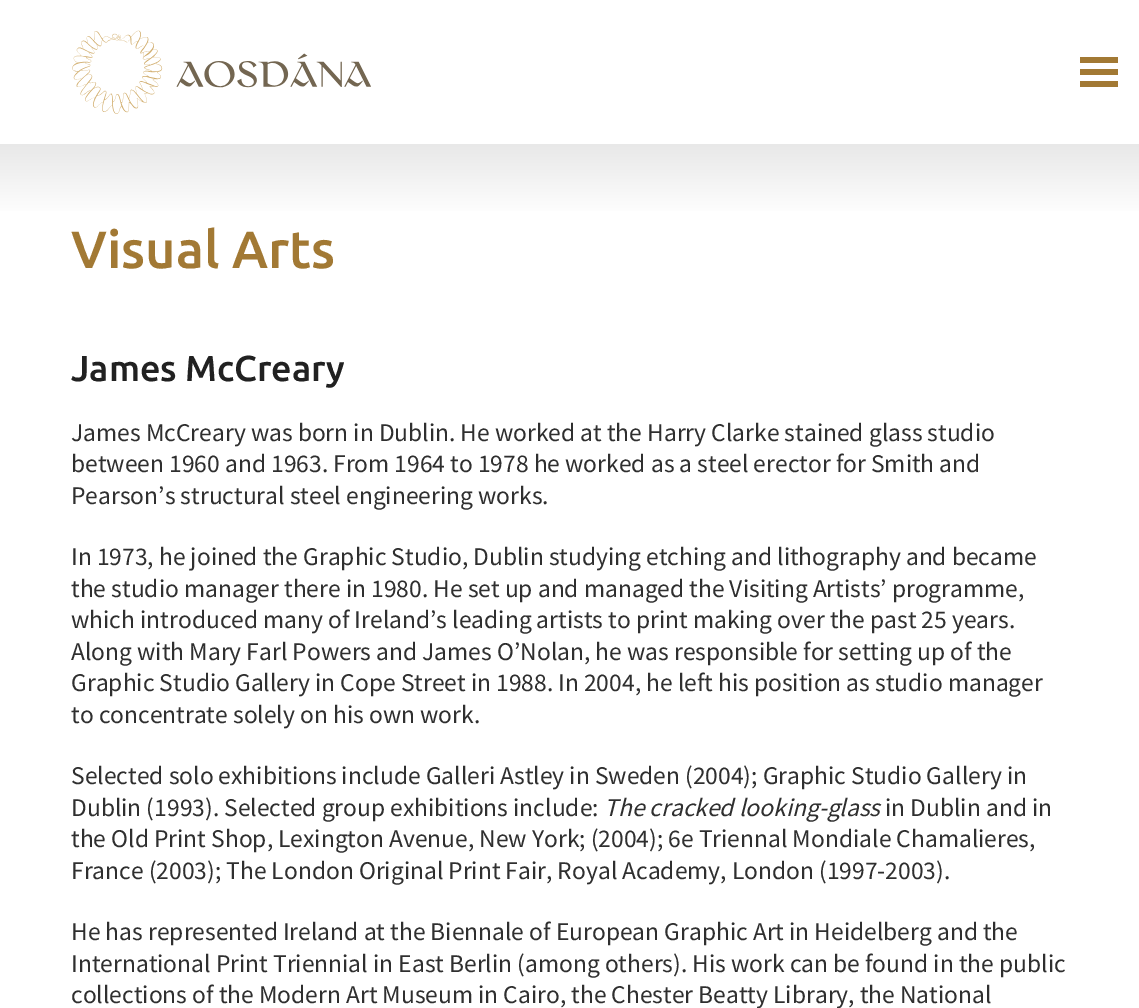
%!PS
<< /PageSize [1139 1008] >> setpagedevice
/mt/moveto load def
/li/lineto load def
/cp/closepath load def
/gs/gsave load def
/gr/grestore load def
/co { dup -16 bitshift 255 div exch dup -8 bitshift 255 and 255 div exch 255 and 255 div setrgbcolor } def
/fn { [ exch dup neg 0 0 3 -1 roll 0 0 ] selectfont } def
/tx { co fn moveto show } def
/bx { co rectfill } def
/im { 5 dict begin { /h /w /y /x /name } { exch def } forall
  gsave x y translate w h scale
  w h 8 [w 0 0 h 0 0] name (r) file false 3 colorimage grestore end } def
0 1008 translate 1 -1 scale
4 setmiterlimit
0 0 1139 1008 16#FFFFFF bx
(media/1.raw) 72 30 299 84 im
1080 57 38 6 16#A27934 bx
1080 81 38 6 16#A27934 bx
1080 69 38 6 16#A27934 bx
gs 0 144 mt 1139 144 li 1139 211 li 0 211 li cp clip newpath
<< /ShadingType 2 /ColorSpace /DeviceRGB /Coords [570 144 570 219] /Extend [true true] /Function << /FunctionType 2 /Domain [0 1] /C0 [.91 .91 .91] /C1 [1 1 1] /N 1 >> >> shfill gr
(Visual Arts) 71 268 /Ubuntu-Medium 52.5 16#A27934 tx
(James McCreary) 71 381 /Ubuntu-Medium 36 16#212121 tx
(James McCreary was born in Dublin. He worked at the Harry Clarke stained glass studio) 71 441 /SourceSansPro-Regular 25.5 16#2F2F2F tx
(between 1960 and 1963. From 1964 to 1978 he worked as a steel erector for Smith and) 71 472 /SourceSansPro-Regular 25.5 16#2F2F2F tx
(Pearson’s structural steel engineering works.) 71 504 /SourceSansPro-Regular 25.5 16#2F2F2F tx
(In 1973, he joined the Graphic Studio, Dublin studying etching and lithography and became) 71 565 /SourceSansPro-Regular 25.5 16#2F2F2F tx
(the studio manager there in 1980. He set up and managed the Visiting Artists’ programme,) 71 597 /SourceSansPro-Regular 25.5 16#2F2F2F tx
(which introduced many of Ireland’s leading artists to print making over the past 25 years.) 71 628 /SourceSansPro-Regular 25.5 16#2F2F2F tx
(Along with Mary Farl Powers and James O’Nolan, he was responsible for setting up of the) 71 660 /SourceSansPro-Regular 25.5 16#2F2F2F tx
(Graphic Studio Gallery in Cope Street in 1988. In 2004, he left his position as studio manager) 71 691 /SourceSansPro-Regular 25.5 16#2F2F2F tx
(to concentrate solely on his own work.) 71 723 /SourceSansPro-Regular 25.5 16#2F2F2F tx
(Selected solo exhibitions include Galleri Astley in Sweden \(2004\); Graphic Studio Gallery in) 71 784 /SourceSansPro-Regular 25.5 16#2F2F2F tx
(Dublin \(1993\). Selected group exhibitions include:) 71 816 /SourceSansPro-Regular 25.5 16#2F2F2F tx
(The cracked looking-glass) 604 816 /SourceSansPro-Italic 25.5 16#2F2F2F tx
(in Dublin and in) 885 816 /SourceSansPro-Regular 25.5 16#2F2F2F tx
(the Old Print Shop, Lexington Avenue, New York; \(2004\); 6e Triennal Mondiale Chamalieres,) 71 847 /SourceSansPro-Regular 25.5 16#2F2F2F tx
(France \(2003\); The London Original Print Fair, Royal Academy, London \(1997-2003\).) 71 879 /SourceSansPro-Regular 25.5 16#2F2F2F tx
(He has represented Ireland at the Biennale of European Graphic Art in Heidelberg and the) 71 940 /SourceSansPro-Regular 25.5 16#2F2F2F tx
(International Print Triennial in East Berlin \(among others\). His work can be found in the public) 71 972 /SourceSansPro-Regular 25.5 16#2F2F2F tx
(collections of the Modern Art Museum in Cairo, the Chester Beatty Library, the National) 71 1003 /SourceSansPro-Regular 25.5 16#2F2F2F tx
showpage
